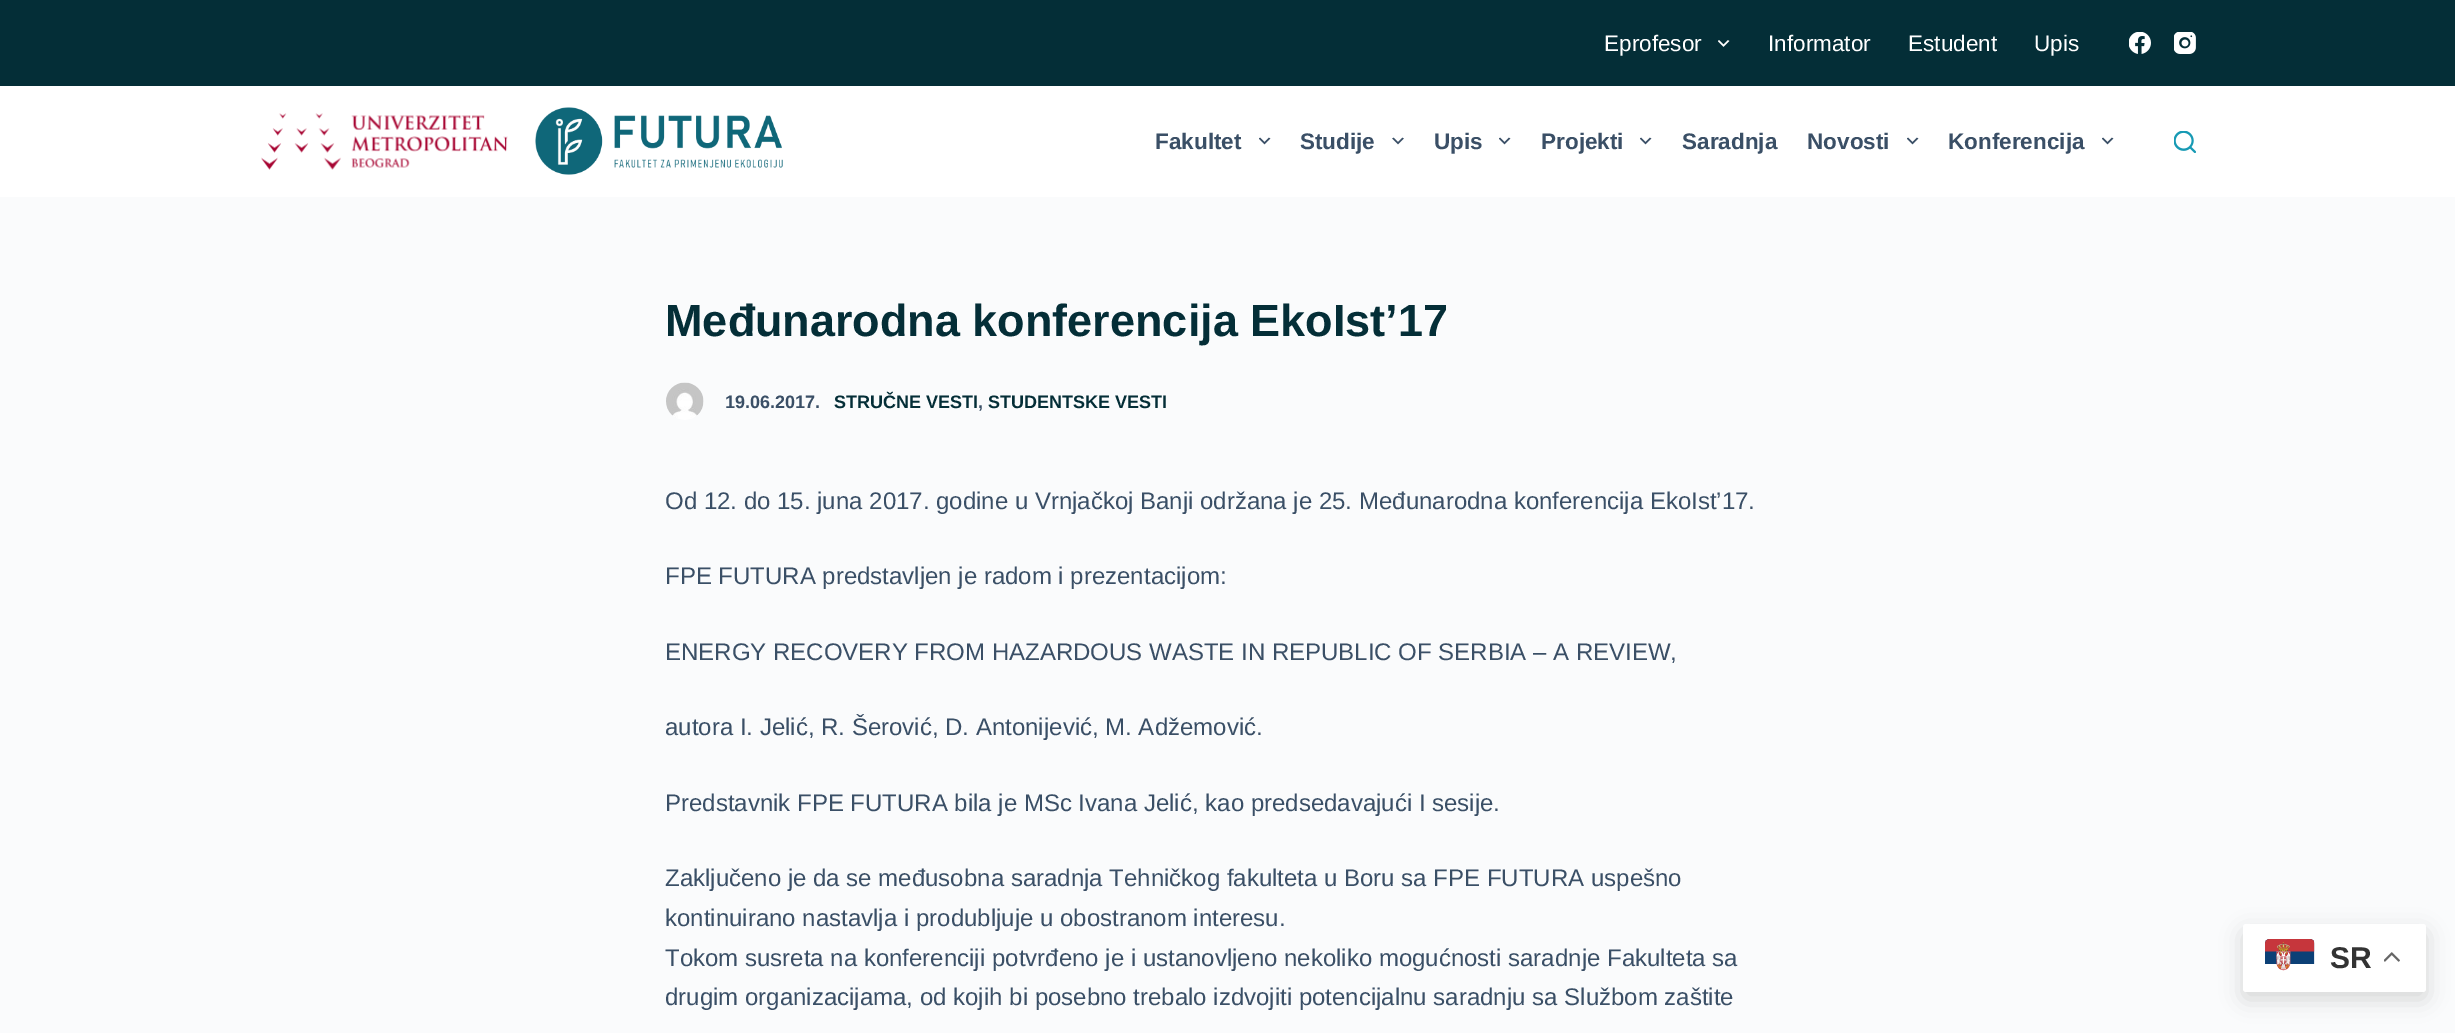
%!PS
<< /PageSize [2455 1033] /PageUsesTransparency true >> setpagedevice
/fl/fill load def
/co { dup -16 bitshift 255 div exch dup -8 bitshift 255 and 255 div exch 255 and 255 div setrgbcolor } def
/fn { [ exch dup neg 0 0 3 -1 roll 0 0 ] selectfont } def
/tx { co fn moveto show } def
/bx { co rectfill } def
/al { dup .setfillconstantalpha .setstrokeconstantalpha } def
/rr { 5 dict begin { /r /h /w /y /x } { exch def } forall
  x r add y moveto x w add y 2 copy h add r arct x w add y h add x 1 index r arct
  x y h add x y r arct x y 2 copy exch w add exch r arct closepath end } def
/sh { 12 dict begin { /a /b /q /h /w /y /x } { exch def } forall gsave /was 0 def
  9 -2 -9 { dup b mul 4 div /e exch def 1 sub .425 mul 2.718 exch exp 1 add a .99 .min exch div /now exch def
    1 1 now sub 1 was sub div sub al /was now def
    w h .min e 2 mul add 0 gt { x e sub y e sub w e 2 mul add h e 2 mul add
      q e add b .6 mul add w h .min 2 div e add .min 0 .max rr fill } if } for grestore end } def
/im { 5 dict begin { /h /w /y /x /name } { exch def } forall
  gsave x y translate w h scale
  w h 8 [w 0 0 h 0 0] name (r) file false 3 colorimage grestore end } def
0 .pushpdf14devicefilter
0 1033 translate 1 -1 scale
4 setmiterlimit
0 0 2455 1033 16#FAFBFC bx
0 0 2455 86 16#042E37 bx
(media/1.raw) 1718 40 12 7 im
(media/2.raw) 2129 32 22 22 im
(media/3.raw) 2174 32 22 22 im
0 86 2455 111 16#FFFFFF bx
(media/4.raw) 261 113 247 57 im
(media/5.raw) 535 107 248 68 im
(media/6.raw) 1259 137 12 8 im
(media/7.raw) 1392 137 12 8 im
(media/6.raw) 1499 137 12 8 im
(media/6.raw) 1640 137 12 8 im
(media/6.raw) 1907 137 12 8 im
(media/6.raw) 2102 137 12 8 im
(media/8.raw) 2174 131 22 22 im
(media/9.raw) 666 382 38 38 im
16#000000 co
2243 932 183 67 3 11 .15 sh
16#FFFFFF co
2243 924 183 68 3 rr fl
(media/10.raw) 2265 939 50 32 im
(media/11.raw) 2384 952 16 10 im
(Eprofesor) 1604 51 /LiberationSans-Regular 22.5 16#FFFFFF tx
(Informator) 1768 51 /LiberationSans-Regular 22.5 16#FFFFFF tx
(Estudent) 1908 51 /LiberationSans-Regular 22.5 16#FFFFFF tx
(Upis) 2034 51 /LiberationSans-Regular 22.5 16#FFFFFF tx
(Fakultet) 1155 149 /LiberationSans-Bold 22.5 16#3A4F66 tx
(Studije) 1300 149 /LiberationSans-Bold 22.5 16#3A4F66 tx
(Upis) 1434 149 /LiberationSans-Bold 22.5 16#3A4F66 tx
(Projekti) 1541 149 /LiberationSans-Bold 22.5 16#3A4F66 tx
(Saradnja) 1682 149 /LiberationSans-Bold 22.5 16#3A4F66 tx
(Novosti) 1807 149 /LiberationSans-Bold 22.5 16#3A4F66 tx
(Konferencija) 1948 149 /LiberationSans-Bold 22.5 16#3A4F66 tx
(Međunarodna konferencija EkoIst’17) 665 336 /LiberationSans-Bold 45 16#042E37 tx
(19.06.2017.) 725 408 /LiberationSans-Bold 18 16#3A4F66 tx
(STRUČNE VESTI) 834 408 /LiberationSans-Bold 18 16#042E37 tx
(,) 978 408 /LiberationSans-Bold 18 16#3A4F66 tx
(STUDENTSKE VESTI) 988 408 /LiberationSans-Bold 18 16#042E37 tx
(Od 12. do 15. juna 2017. godine u Vrnjačkoj Banji održana je 25. Međunarodna konferencija EkoIst’17.) 665 509 /LiberationSans-Regular 24 16#3A4F66 tx
(FPE FUTURA predstavljen je radom i prezentacijom:) 665 584 /LiberationSans-Regular 24 16#3A4F66 tx
(ENERGY RECOVERY FROM HAZARDOUS WASTE IN REPUBLIC OF SERBIA – A REVIEW,) 665 660 /LiberationSans-Regular 24 16#3A4F66 tx
(autora I. Jelić, R. Šerović, D. Antonijević, M. Adžemović.) 665 735 /LiberationSans-Regular 24 16#3A4F66 tx
(Predstavnik FPE FUTURA bila je MSc Ivana Jelić, kao predsedavajući I sesije.) 665 811 /LiberationSans-Regular 24 16#3A4F66 tx
(Zaključeno je da se međusobna saradnja Tehničkog fakulteta u Boru sa FPE FUTURA uspešno) 665 886 /LiberationSans-Regular 24 16#3A4F66 tx
(kontinuirano nastavlja i produbljuje u obostranom interesu.) 665 926 /LiberationSans-Regular 24 16#3A4F66 tx
(Tokom susreta na konferenciji potvrđeno je i ustanovljeno nekoliko mogućnosti saradnje Fakulteta sa) 665 966 /LiberationSans-Regular 24 16#3A4F66 tx
(drugim organizacijama, od kojih bi posebno trebalo izdvojiti potencijalnu saradnju sa Službom zaštite) 665 1005 /LiberationSans-Regular 24 16#3A4F66 tx
(SR) 2330 968 /LiberationSans-Bold 30 16#333333 tx
.poppdf14devicefilter showpage
